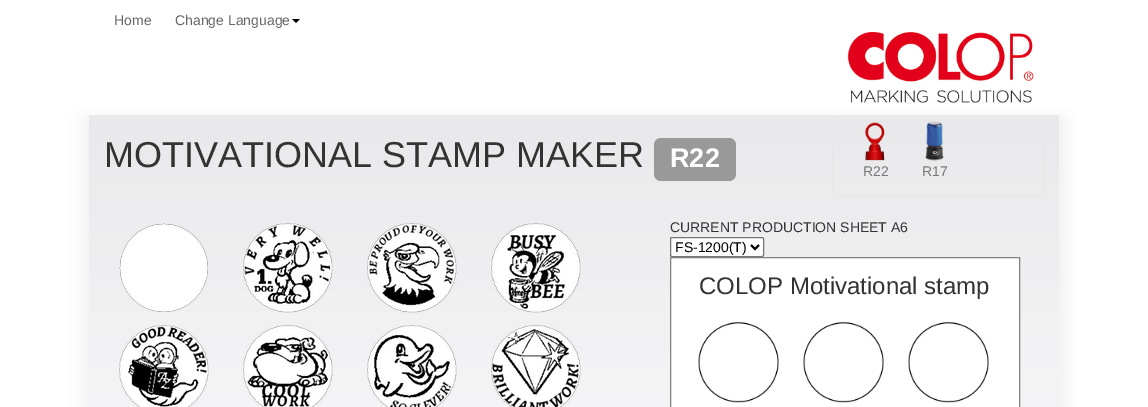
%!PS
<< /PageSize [1148 407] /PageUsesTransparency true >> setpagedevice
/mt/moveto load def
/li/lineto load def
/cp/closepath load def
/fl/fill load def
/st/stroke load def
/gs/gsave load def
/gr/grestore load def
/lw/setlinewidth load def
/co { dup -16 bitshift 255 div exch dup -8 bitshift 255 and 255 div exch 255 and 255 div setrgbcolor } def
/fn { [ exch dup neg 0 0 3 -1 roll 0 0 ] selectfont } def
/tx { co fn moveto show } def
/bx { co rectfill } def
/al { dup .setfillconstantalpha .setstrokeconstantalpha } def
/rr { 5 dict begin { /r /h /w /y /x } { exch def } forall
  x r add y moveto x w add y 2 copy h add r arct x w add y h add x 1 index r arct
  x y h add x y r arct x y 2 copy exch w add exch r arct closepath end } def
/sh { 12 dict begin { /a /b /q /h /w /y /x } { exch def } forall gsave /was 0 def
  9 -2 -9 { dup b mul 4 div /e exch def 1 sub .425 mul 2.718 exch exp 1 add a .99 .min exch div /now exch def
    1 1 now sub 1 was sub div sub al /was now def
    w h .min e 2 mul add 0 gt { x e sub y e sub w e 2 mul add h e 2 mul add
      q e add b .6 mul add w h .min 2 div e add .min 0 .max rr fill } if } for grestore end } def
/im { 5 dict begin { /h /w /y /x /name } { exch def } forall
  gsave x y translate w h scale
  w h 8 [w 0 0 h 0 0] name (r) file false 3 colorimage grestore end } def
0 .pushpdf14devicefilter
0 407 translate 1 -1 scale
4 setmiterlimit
0 0 1148 407 16#FFFFFF bx
16#000000 co
292 19 mt 300 19 li 296 23 li cp fl
16#EFEFEF co
83 119 982 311 0 7.5 1 sh
(media/1.raw) 847 31 187 72 im
(media/2.raw) 89 115 970 292 im
16#999999 co
654 138 82 43 7 rr fl
16#E7E7E7 co
832.5 115.5 211 81 3.5 rr st
(media/3.raw) 865 122 20 39 im
(media/4.raw) 925 121 19 40 im
(media/5.raw) 119 223 89 89 im
(media/6.raw) 243 223 90 90 im
(media/7.raw) 367 223 90 90 im
(media/8.raw) 491 223 90 90 im
(media/9.raw) 119 325 90 82 im
(media/10.raw) 243 325 90 82 im
(media/11.raw) 367 325 90 82 im
(media/12.raw) 491 325 90 82 im
16#FFFFFF co
670.5 237.5 93 19 1.5 rr gs fl gr
16#767676 co
st
16#000000 co
2 lw
751 245 mt 755 249 li 759 245 li st
16#FFFFFF co
670.5 257.5 mt 1019.5 257.5 li 1019.5 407.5 li 670.5 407.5 li cp gs fl gr
16#808080 co
1 lw
st
(media/13.raw) 698 322 81 81 im
(media/13.raw) 803 322 81 81 im
(media/14.raw) 908 322 81 81 im
(Home) 114 25 /LiberationSans-Regular 14 16#666666 tx
(Change Language) 175 25 /LiberationSans-Regular 14 16#666666 tx
(MOTIVATIONAL STAMP MAKER) 104 167 /LiberationSans-Regular 36 16#333333 tx
(R22) 670 167 /LiberationSans-Bold 27 16#FFFFFF tx
(R22) 863 176 /LiberationSans-Regular 14 16#777777 tx
(R17) 922 176 /LiberationSans-Regular 14 16#777777 tx
(CURRENT PRODUCTION SHEET A6) 670 232 /LiberationSans-Regular 14 16#333333 tx
(FS-1200\(T\)) 675 252 /LiberationSans-Regular 14 16#000000 tx
(COLOP Motivational stamp) 699 294 /LiberationSans-Regular 24 16#333333 tx
.poppdf14devicefilter showpage
